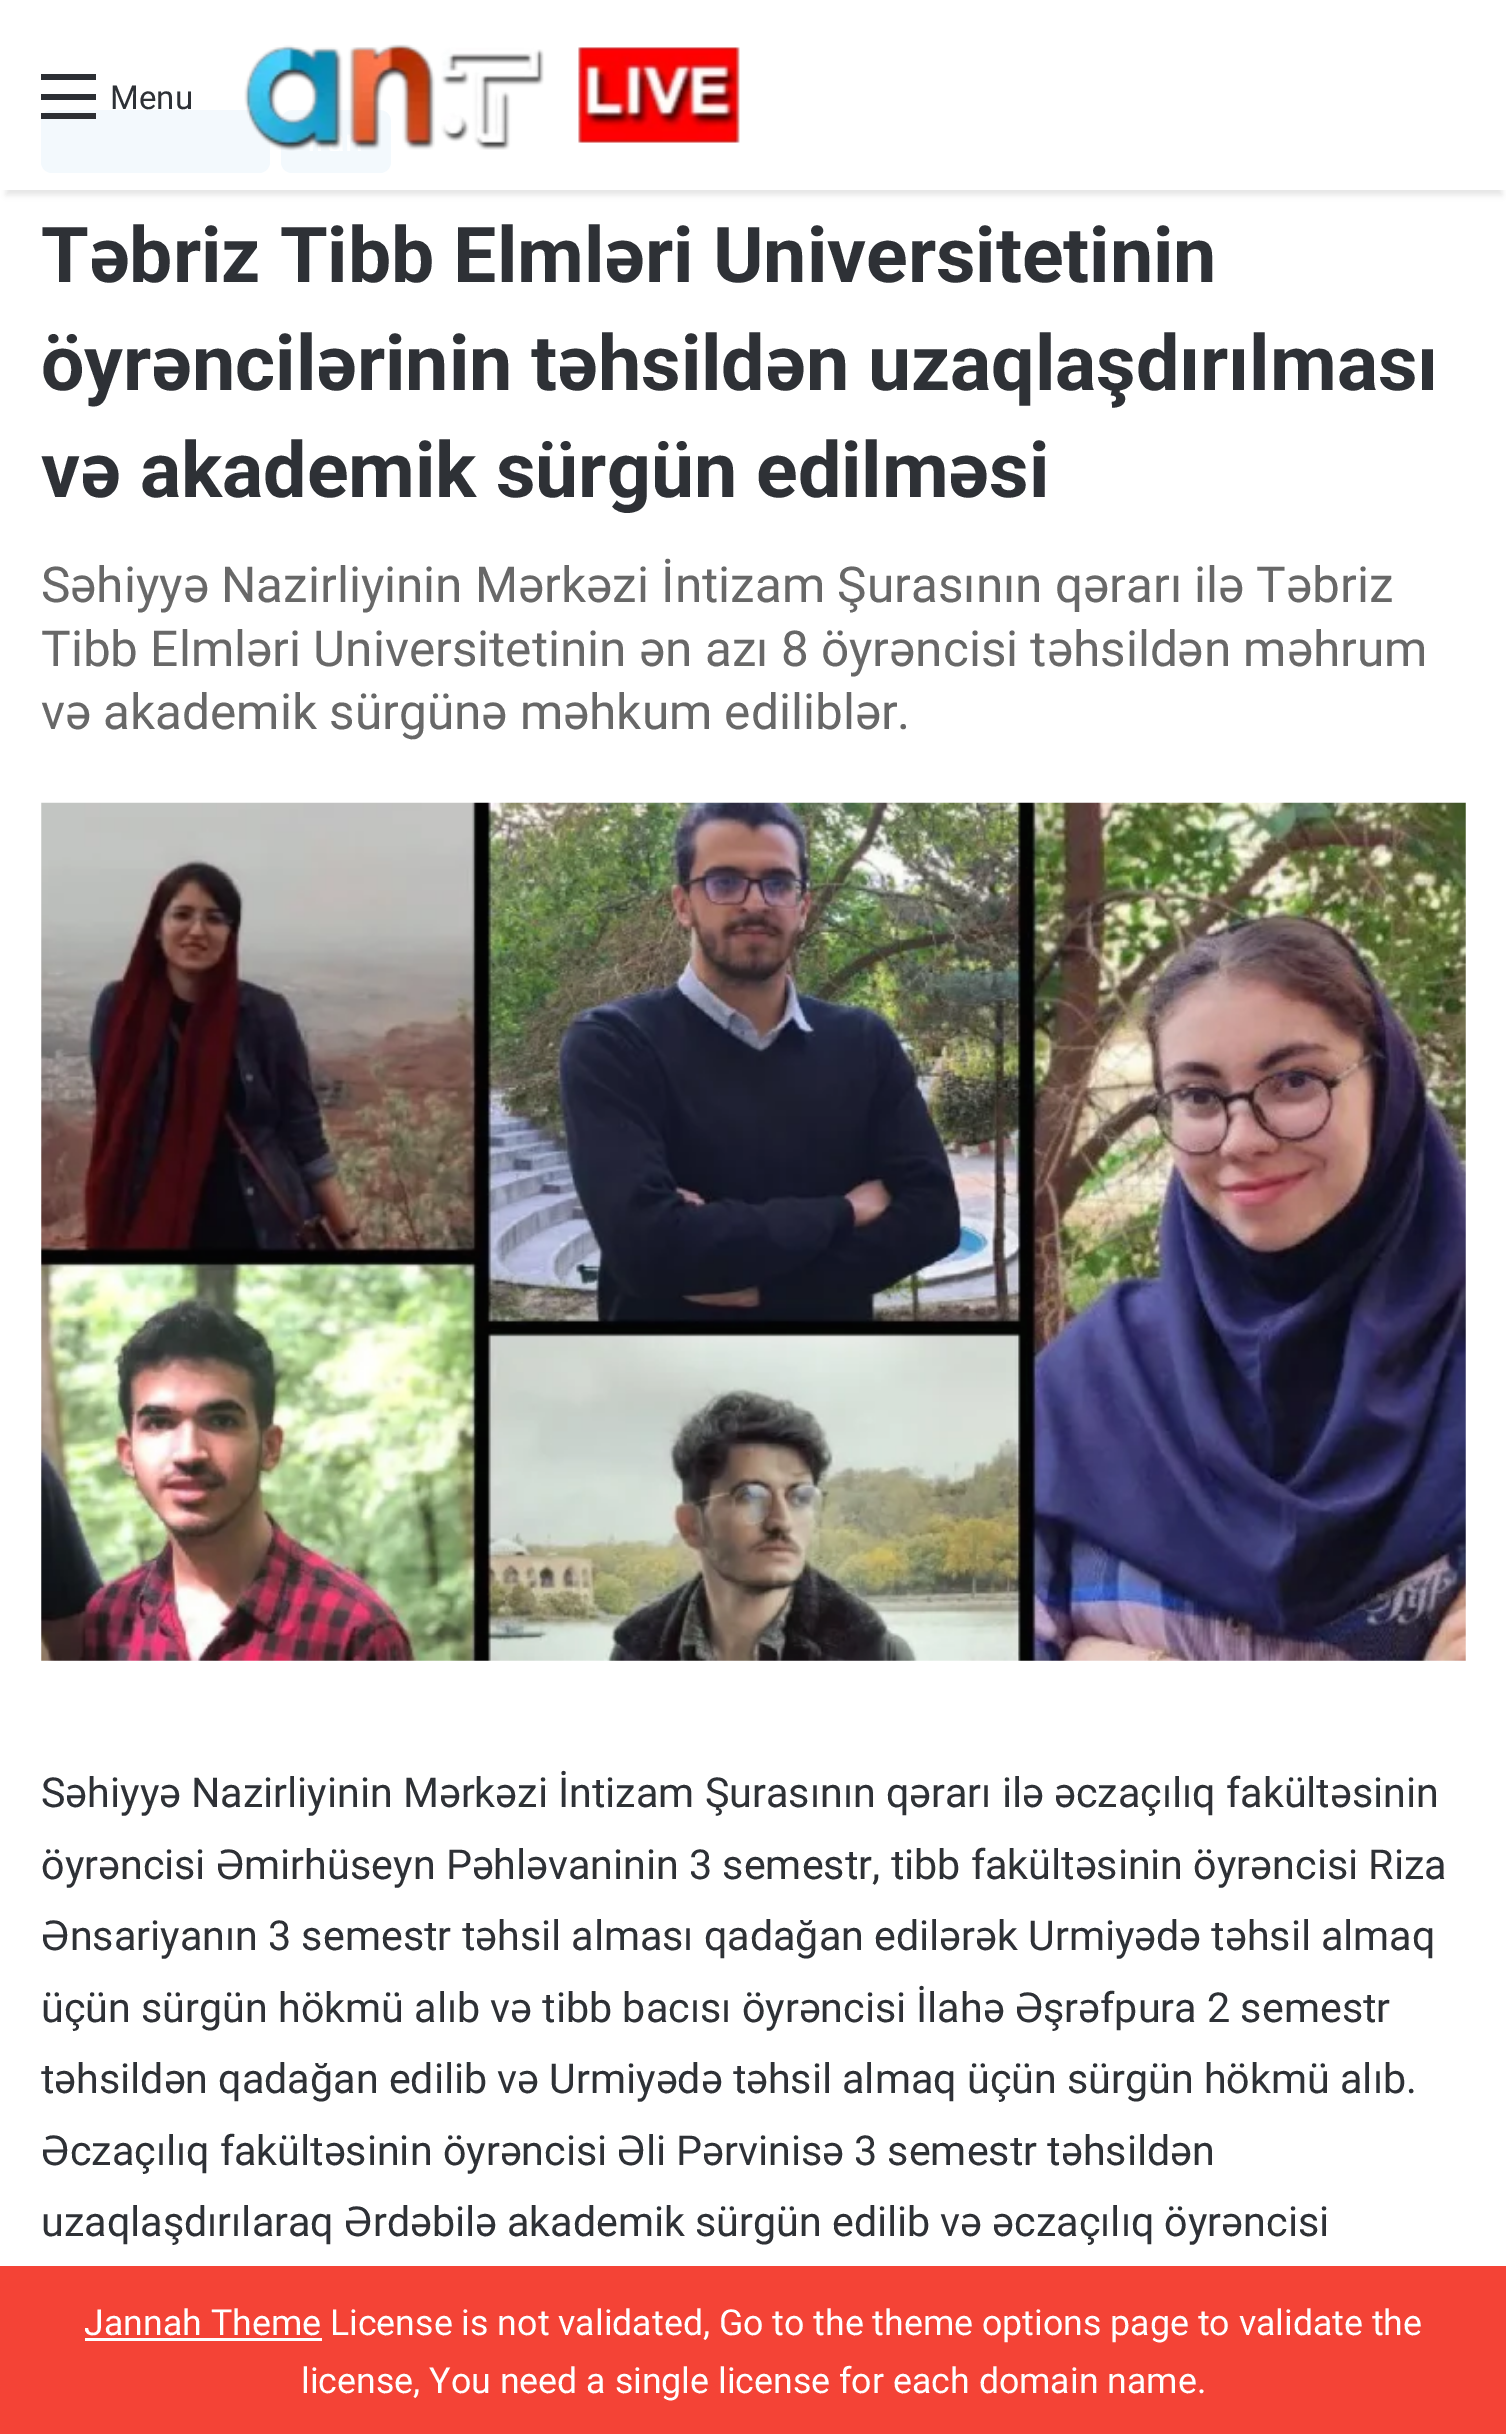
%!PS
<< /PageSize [1506 2434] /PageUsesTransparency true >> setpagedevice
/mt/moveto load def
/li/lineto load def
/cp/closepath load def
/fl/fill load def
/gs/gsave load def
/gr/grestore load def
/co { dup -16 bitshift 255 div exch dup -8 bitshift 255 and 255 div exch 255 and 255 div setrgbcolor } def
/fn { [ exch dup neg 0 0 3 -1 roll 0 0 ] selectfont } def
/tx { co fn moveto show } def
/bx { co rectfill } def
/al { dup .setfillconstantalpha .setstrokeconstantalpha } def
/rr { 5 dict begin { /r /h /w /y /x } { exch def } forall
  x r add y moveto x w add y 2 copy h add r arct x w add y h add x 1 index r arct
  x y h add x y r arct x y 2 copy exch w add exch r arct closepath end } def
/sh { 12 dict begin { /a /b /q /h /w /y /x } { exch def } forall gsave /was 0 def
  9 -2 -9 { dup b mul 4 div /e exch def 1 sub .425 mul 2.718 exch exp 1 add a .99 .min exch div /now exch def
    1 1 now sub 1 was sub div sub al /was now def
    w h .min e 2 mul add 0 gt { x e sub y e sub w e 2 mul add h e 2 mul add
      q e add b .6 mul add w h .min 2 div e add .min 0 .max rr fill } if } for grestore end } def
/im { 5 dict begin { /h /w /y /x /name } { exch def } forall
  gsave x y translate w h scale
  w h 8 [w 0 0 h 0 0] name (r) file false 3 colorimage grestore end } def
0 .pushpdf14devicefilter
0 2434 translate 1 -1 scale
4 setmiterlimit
0 0 1506 2434 16#FFFFFF bx
16#0C88DB co
41 110 229 63 11 rr fl
281 110 110 63 11 rr fl
gs
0 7 mt 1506 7 li 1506 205 li 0 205 li cp 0 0 mt 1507 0 li 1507 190 li 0 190 li cp eoclip newpath
16#000000 co
6 17 1496 178 0 3 .1 sh
gr
0.95 al
6 110 1496 80 16#FFFFFF bx
1 al
41 94 55 6 16#2C2F34 bx
41 74 55 6 16#2C2F34 bx
41 113 55 6 16#2C2F34 bx
(media/1.raw) 244 44 496 107 im
(media/2.raw) 41 802 1425 859 im
0 2266 1506 168 16#F44336 bx
85 2338 237 3 16#FFFFFF bx
(Menu) 110 109 /Roboto-Regular 33 16#2E3136 tx
(Təbriz Tibb Elmləri Universitetinin) 41 282 /Roboto-Bold 77 16#2E3136 tx
(öyrəncilərinin təhsildən uzaqlaşdırılması) 41 390 /Roboto-Bold 77 16#2E3136 tx
(və akademik sürgün edilməsi) 41 497 /Roboto-Bold 77 16#2E3136 tx
(Səhiyyə Nazirliyinin Mərkəzi İntizam Şurasının qərarı ilə Təbriz) 41 602 /Roboto-Regular 49.5 16#686868 tx
(Tibb Elmləri Universitetinin ən azı 8 öyrəncisi təhsildən məhrum) 41 666 /Roboto-Regular 49.5 16#686868 tx
(və akademik sürgünə məhkum ediliblər.) 41 729 /Roboto-Regular 49.5 16#686868 tx
(Səhiyyə Nazirliyinin Mərkəzi İntizam Şurasının qərarı ilə əczaçılıq fakültəsinin) 41 1807 /Roboto-Regular 41.25 16#2E3136 tx
(öyrəncisi Əmirhüseyn Pəhləvaninin 3 semestr, tibb fakültəsinin öyrəncisi Riza) 41 1879 /Roboto-Regular 41.25 16#2E3136 tx
(Ənsariyanın 3 semestr təhsil alması qadağan edilərək Urmiyədə təhsil almaq) 41 1950 /Roboto-Regular 41.25 16#2E3136 tx
(üçün sürgün hökmü alıb və tibb bacısı öyrəncisi İlahə Əşrəfpura 2 semestr) 41 2022 /Roboto-Regular 41.25 16#2E3136 tx
(təhsildən qadağan edilib və Urmiyədə təhsil almaq üçün sürgün hökmü alıb.) 41 2093 /Roboto-Regular 41.25 16#2E3136 tx
(Əczaçılıq fakültəsinin öyrəncisi Əli Pərvinisə 3 semestr təhsildən) 41 2165 /Roboto-Regular 41.25 16#2E3136 tx
(uzaqlaşdırılaraq Ərdəbilə akademik sürgün edilib və əczaçılıq öyrəncisi) 41 2236 /Roboto-Regular 41.25 16#2E3136 tx
(Jannah Theme License is not validated, Go to the theme options page to validate the) 84 2335 /Roboto-Regular 35.75 16#FFFFFF tx
(license, You need a single license for each domain name.) 301 2393 /Roboto-Regular 35.75 16#FFFFFF tx
.poppdf14devicefilter showpage
